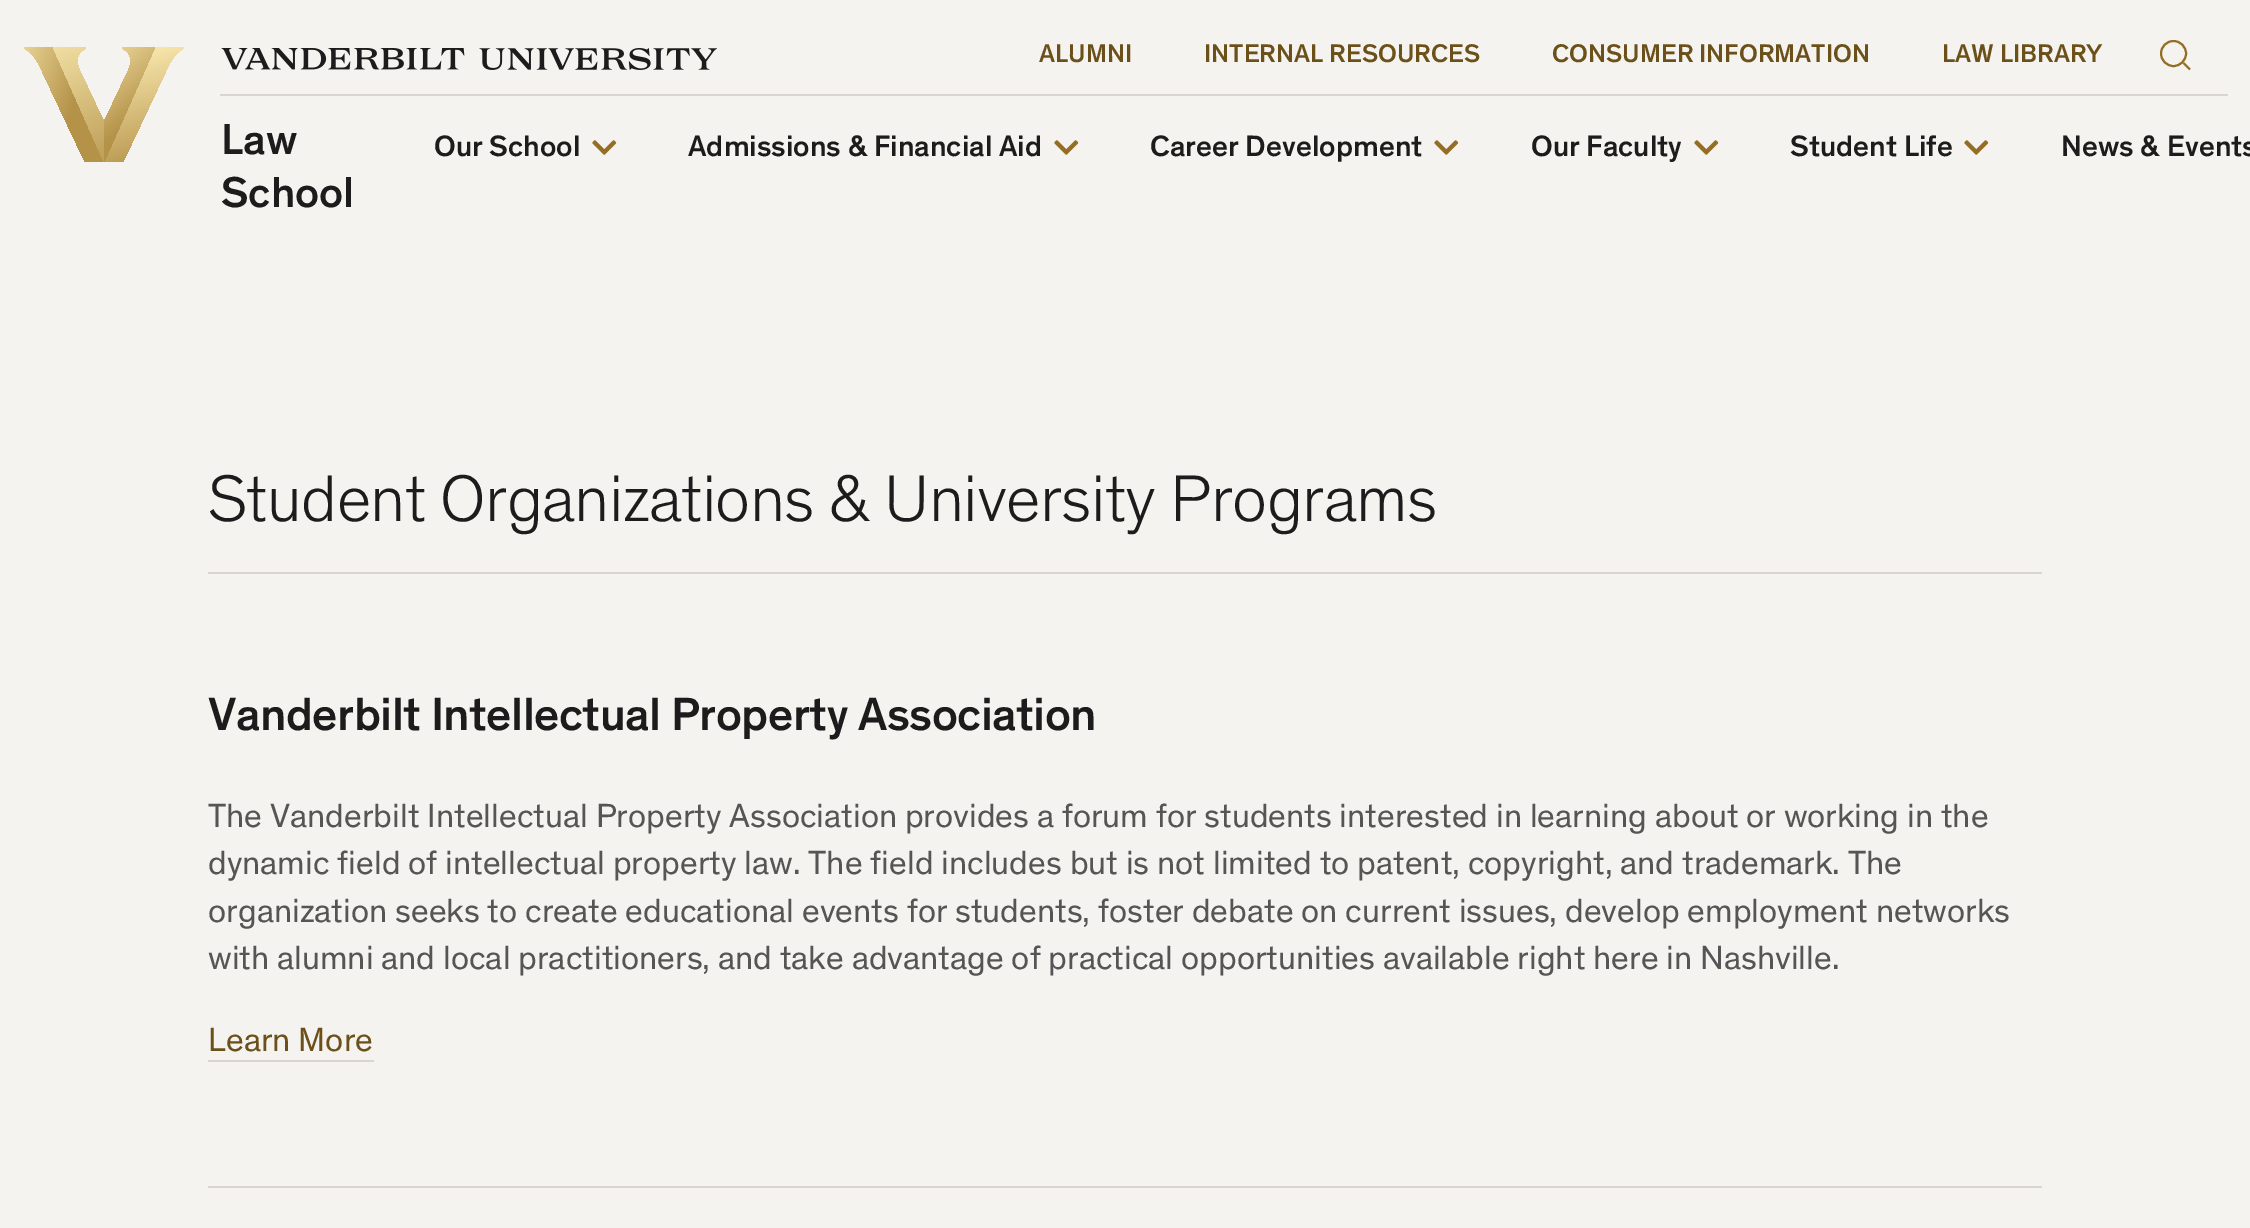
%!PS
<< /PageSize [2250 1228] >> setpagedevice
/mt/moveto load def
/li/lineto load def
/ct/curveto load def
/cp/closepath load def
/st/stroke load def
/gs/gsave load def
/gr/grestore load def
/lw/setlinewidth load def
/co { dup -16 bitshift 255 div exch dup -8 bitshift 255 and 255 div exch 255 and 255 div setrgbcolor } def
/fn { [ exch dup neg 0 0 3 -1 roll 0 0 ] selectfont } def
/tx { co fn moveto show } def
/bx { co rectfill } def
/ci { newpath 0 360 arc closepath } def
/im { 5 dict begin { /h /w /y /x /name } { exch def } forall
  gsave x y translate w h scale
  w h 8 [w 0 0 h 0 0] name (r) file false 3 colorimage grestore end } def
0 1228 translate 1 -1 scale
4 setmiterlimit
0 0 2250 1228 16#F5F3EF bx
gs 53 47 mt 24 47 li 24 48 li 33 54 37 59 42 71 ct 85 162 li 104 162 li cp clip newpath
<< /ShadingType 2 /ColorSpace /DeviceRGB /Coords [-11 59 79 91] /Extend [true true] /Function << /FunctionType 2 /Domain [0 1] /C0 [.996 .933 .714] /C1 [.706 .573 .282] /N 1 >> >> shfill gr
gs 104 162 mt 104 122 li 80 71 li 75 59 76 54 86 48 ct 86 47 li 53 47 li cp clip newpath
<< /ShadingType 2 /ColorSpace /DeviceRGB /Coords [34 22 103 187] /Extend [true true] /Function << /FunctionType 2 /Domain [0 1] /C0 [.996 .933 .714] /C1 [.706 .573 .282] /N 1 >> >> shfill gr
gs 155 47 mt 184 47 li 184 48 li 175 54 171 59 166 71 ct 123 162 li 104 162 li cp clip newpath
<< /ShadingType 2 /ColorSpace /DeviceRGB /Coords [105 48 138 174] /Extend [true true] /Function << /FunctionType 2 /Domain [0 1] /C0 [.996 .933 .714] /C1 [.706 .573 .282] /N 1 >> >> shfill gr
gs 104 162 mt 104 122 li 128 71 li 133 59 132 54 122 48 ct 122 47 li 155 47 li cp clip newpath
<< /ShadingType 2 /ColorSpace /DeviceRGB /Coords [80 40 141 114] /Extend [true true] /Function << /FunctionType 2 /Domain [0 1] /C0 [.996 .933 .714] /C1 [.706 .573 .282] /N 1 >> >> shfill gr
(media/1.raw) 221 48 496 22 im
16#946E24 co
2 lw
2173.5 53.5 12.5 ci st
2183.5 63 mt 2190 69.5 li st
220 94 2008 2 16#D9D5CF bx
(media/2.raw) 592 140 25 15 im
(media/2.raw) 1054 140 25 15 im
(media/2.raw) 1434 140 25 15 im
(media/2.raw) 1694 140 25 15 im
(media/2.raw) 1964 140 25 15 im
208 572 1834 2 16#D9D5CF bx
208 1060 166 2 16#D9D5CF bx
208 1186 1834 2 16#D9D5CF bx
(ALUMNI) 1039 62 /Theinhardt-Medium 26 16#6B501A tx
(INTERNAL RESOURCES) 1204 62 /Theinhardt-Medium 26 16#6B501A tx
(CONSUMER INFORMATION) 1552 62 /Theinhardt-Medium 26 16#6B501A tx
(LAW LIBRARY) 1942 62 /Theinhardt-Medium 26 16#6B501A tx
(Law) 221 154 /Theinhardt-Medium 44 16#1C1C1C tx
(School) 221 207 /Theinhardt-Medium 44 16#1C1C1C tx
(Our School) 434 156 /Theinhardt-Medium 30 16#1C1C1C tx
(Admissions & Financial Aid) 688 156 /Theinhardt-Medium 30 16#1C1C1C tx
(Career Development) 1150 156 /Theinhardt-Medium 30 16#1C1C1C tx
(Our Faculty) 1531 156 /Theinhardt-Medium 30 16#1C1C1C tx
(Student Life) 1790 156 /Theinhardt-Medium 30 16#1C1C1C tx
(News & Events) 2061 156 /Theinhardt-Medium 30 16#1C1C1C tx
/Theinhardt-Light 67 fn
208 521 mt -.65 0 (Student Organizations & University Programs) ashow
/Theinhardt-Medium 47.5 fn
208 730 mt -.45 0 (Vanderbilt Intellectual Property Association) ashow
(The Vanderbilt Intellectual Property Association provides a forum for students interested in learning about or working in the) 208 827 /Theinhardt-Regular 34 16#555555 tx
(dynamic field of intellectual property law. The field includes but is not limited to patent, copyright, and trademark. The) 208 874 /Theinhardt-Regular 34 16#555555 tx
(organization seeks to create educational events for students, foster debate on current issues, develop employment networks) 208 922 /Theinhardt-Regular 34 16#555555 tx
(with alumni and local practitioners, and take advantage of practical opportunities available right here in Nashville.) 208 969 /Theinhardt-Regular 34 16#555555 tx
(Learn More) 208 1051 /Theinhardt-Regular 34 16#6B501A tx
showpage
